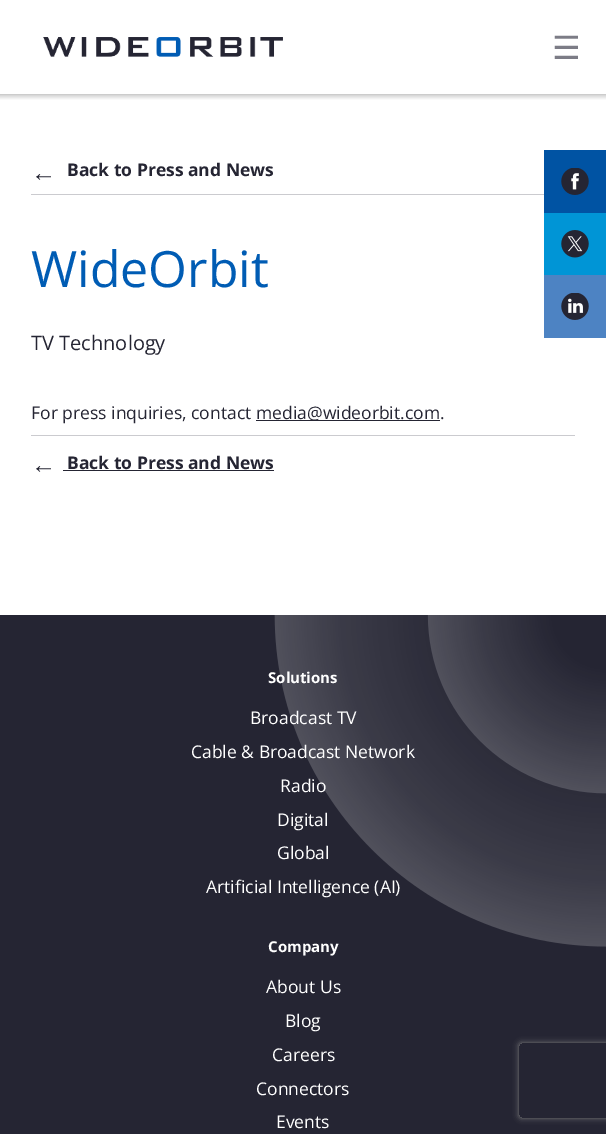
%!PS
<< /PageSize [606 1134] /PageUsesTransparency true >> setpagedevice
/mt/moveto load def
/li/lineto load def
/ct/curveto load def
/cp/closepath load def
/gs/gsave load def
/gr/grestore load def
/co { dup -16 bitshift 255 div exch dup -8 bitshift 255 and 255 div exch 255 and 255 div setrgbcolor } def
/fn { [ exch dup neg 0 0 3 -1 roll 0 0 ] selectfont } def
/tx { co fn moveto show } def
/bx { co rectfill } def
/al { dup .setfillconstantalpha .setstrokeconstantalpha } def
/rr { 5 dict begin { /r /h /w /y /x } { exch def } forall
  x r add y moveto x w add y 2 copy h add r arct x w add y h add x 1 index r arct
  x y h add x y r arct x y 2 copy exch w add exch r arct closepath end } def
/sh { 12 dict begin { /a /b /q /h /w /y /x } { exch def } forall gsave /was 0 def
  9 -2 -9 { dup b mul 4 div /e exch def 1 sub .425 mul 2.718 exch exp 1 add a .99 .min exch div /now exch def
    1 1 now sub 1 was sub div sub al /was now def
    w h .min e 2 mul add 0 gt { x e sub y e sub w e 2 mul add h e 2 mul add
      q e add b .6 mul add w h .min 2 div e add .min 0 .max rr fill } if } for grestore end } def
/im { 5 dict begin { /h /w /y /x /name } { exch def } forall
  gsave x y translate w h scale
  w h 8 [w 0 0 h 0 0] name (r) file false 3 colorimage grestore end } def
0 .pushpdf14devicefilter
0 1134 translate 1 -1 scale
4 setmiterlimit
0 0 606 1134 16#FFFFFF bx
(media/1.raw) 43 37 240 20 im
gs 0 94 mt 606 94 li 606 100 li 0 100 li cp clip newpath
<< /ShadingType 2 /ColorSpace /DeviceRGB /Coords [303 100 303 94] /Extend [true true] /Function << /FunctionType 2 /Domain [0 1] /C0 [1 1 1] /C1 [.8 .8 .8] /N 1 >> >> shfill gr
31 194 513 1 16#CBCBCF bx
544 150 62 63 16#0053A3 bx
(media/2.raw) 561 168 28 27 im
544 213 62 62 16#0095D6 bx
(media/3.raw) 561 230 28 28 im
544 275 62 63 16#4D83C3 bx
(media/4.raw) 561 293 28 27 im
256 420 184 1 16#252533 bx
31 435 544 1 16#CBCBCF bx
63 470 211 1 16#252533 bx
0 615 606 519 16#252533 bx
(media/5.raw) 274 615 332 332 im
gs
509 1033 mt 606 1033 li 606 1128 li 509 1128 li cp 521.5 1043 mt 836.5 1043 li 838 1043 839 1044 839 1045.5 ct 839 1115.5 li 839 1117 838 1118 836.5 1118 ct 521.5 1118 li 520 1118 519 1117 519 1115.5 ct 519 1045.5 li 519 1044 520 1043 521.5 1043 ct cp eoclip newpath
16#808080 co
519 1043 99 75 2.5 3 1 sh
gr
(☰) 552 59 /DejaVuSans-Regular 32 16#7C7C86 tx
(←) 31 181 /LiberationSans-Bold 25 16#252533 tx
(Back to Press and News) 67 176 /OpenSans-Bold 17.5 16#252533 tx
(WideOrbit) 31 287 /OpenSans-Regular 50 16#005CB4 tx
(TV Technology) 31 350 /OpenSans-Regular 20 16#252533 tx
(For press inquiries, contact) 31 419 /OpenSans-Regular 17.5 16#252533 tx
(media@wideorbit.com.) 256 419 /OpenSans-Regular 17.5 16#252533 tx
(←) 31 473 /LiberationSans-Bold 25 16#252533 tx
(Back to Press and News) 67 469 /OpenSans-Bold 17.5 16#252533 tx
(Solutions) 268 683 /OpenSans-Bold 15 16#FFFFFF tx
(Broadcast TV) 250 724 /OpenSans-Regular 17.5 16#FFFFFF tx
(Cable & Broadcast Network) 191 758 /OpenSans-Regular 17.5 16#FFFFFF tx
(Radio) 280 792 /OpenSans-Regular 17.5 16#FFFFFF tx
(Digital) 277 826 /OpenSans-Regular 17.5 16#FFFFFF tx
(Global) 277 859 /OpenSans-Regular 17.5 16#FFFFFF tx
(Artificial Intelligence \(AI\)) 206 893 /OpenSans-Regular 17.5 16#FFFFFF tx
(Company) 268 952 /OpenSans-Bold 15 16#FFFFFF tx
(About Us) 266 993 /OpenSans-Regular 17.5 16#FFFFFF tx
(Blog) 285 1027 /OpenSans-Regular 17.5 16#FFFFFF tx
(Careers) 272 1061 /OpenSans-Regular 17.5 16#FFFFFF tx
(Connectors) 256 1095 /OpenSans-Regular 17.5 16#FFFFFF tx
(Events) 276 1128 /OpenSans-Regular 17.5 16#FFFFFF tx
.poppdf14devicefilter showpage
